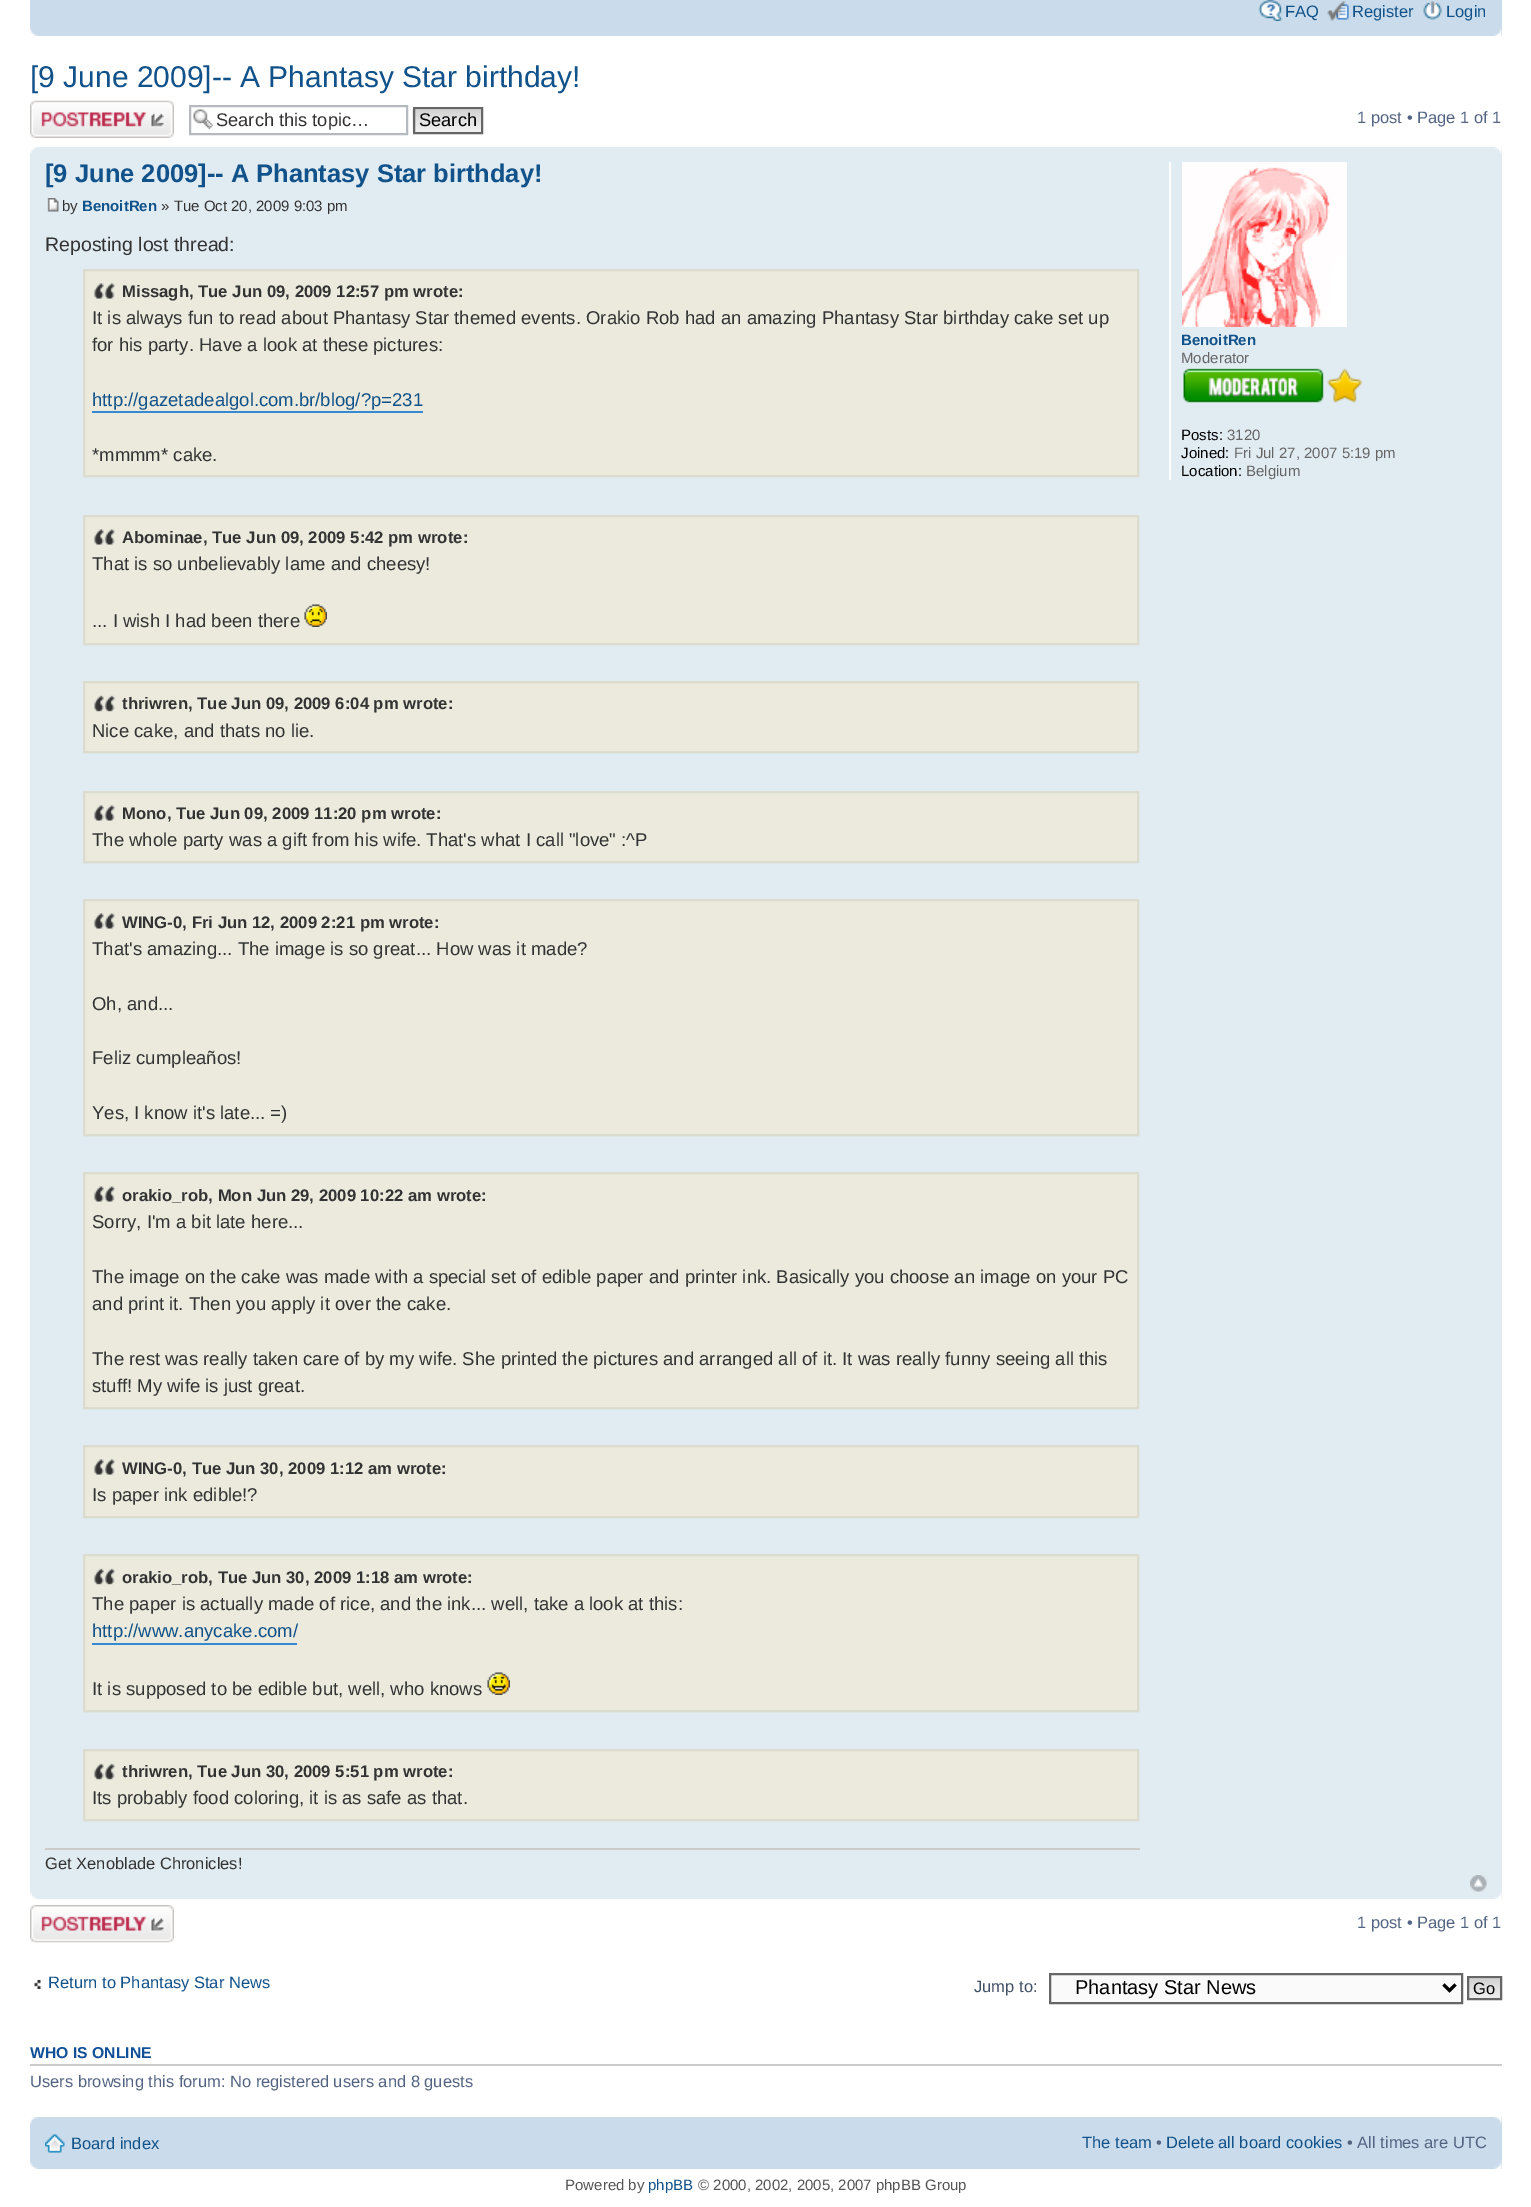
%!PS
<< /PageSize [1531 2207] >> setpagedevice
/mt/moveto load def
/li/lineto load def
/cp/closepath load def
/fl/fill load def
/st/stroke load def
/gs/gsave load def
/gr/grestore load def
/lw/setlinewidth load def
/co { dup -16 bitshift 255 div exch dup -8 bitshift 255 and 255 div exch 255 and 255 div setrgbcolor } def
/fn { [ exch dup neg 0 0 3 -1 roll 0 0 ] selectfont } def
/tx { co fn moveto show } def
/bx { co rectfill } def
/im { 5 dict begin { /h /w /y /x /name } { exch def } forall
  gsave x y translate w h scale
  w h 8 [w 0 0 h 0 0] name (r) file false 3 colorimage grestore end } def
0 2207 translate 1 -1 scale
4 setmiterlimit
0 0 1531 2207 16#FFFFFF bx
30 0 1472 36 16#CADCEB bx
(media/1.raw) 1258 0 25 21 im
(media/2.raw) 1327 1 22 20 im
(media/3.raw) 1423 1 19 19 im
(media/4.raw) 30 28 8 8 im
(media/5.raw) 1494 28 8 8 im
(media/6.raw) 30 100 144 38 im
(media/7.raw) 193 109 21 20 im
16#B4BAC0 co
2 lw
190 106 217 28 rectstroke
(media/8.raw) 412 108 69 26 im
16#666666 co
414 108 68 25 rectstroke
30 147 1472 1752 16#E1EBF2 bx
(media/9.raw) 30 147 7 7 im
(media/10.raw) 1494 147 8 7 im
(media/11.raw) 47 198 12 14 im
85 271 1052 204 16#EBEADD bx
(media/12.raw) 94 283 22 16 im
16#DBDBCE co
84 270 1054 206 rectstroke
92 411 331 2 16#368AD2 bx
85 517 1052 126 16#EBEADD bx
(media/12.raw) 94 529 22 16 im
16#DBDBCE co
84 516 1054 128 rectstroke
(media/13.raw) 304 604 23 23 im
85 683 1052 68 16#EBEADD bx
(media/14.raw) 94 695 22 17 im
16#DBDBCE co
84 682 1054 70 rectstroke
85 793 1052 68 16#EBEADD bx
(media/12.raw) 94 805 22 16 im
16#DBDBCE co
84 792 1054 70 rectstroke
85 901 1052 233 16#EBEADD bx
(media/12.raw) 94 913 22 16 im
16#DBDBCE co
84 900 1054 235 rectstroke
85 1174 1052 233 16#EBEADD bx
(media/12.raw) 94 1186 22 16 im
16#DBDBCE co
84 1173 1054 235 rectstroke
85 1447 1052 69 16#EBEADD bx
(media/12.raw) 94 1459 22 16 im
16#DBDBCE co
84 1446 1054 71 rectstroke
85 1556 1052 154 16#EBEADD bx
(media/14.raw) 94 1568 22 17 im
16#DBDBCE co
84 1555 1054 156 rectstroke
92 1643 205 2 16#368AD2 bx
(media/15.raw) 487 1672 23 23 im
85 1751 1052 68 16#EBEADD bx
(media/14.raw) 94 1763 22 17 im
16#DBDBCE co
84 1750 1054 70 rectstroke
45 1848 1095 2 16#CCCCCC bx
1169 162 2 318 16#FFFFFF bx
(media/16.raw) 1182 162 165 165 im
(media/17.raw) 1183 368 179 35 im
(media/18.raw) 1470 1875 17 17 im
(media/19.raw) 30 1892 7 7 im
(media/20.raw) 1494 1892 8 7 im
(media/21.raw) 30 1905 144 38 im
(media/22.raw) 34 1980 7 9 im
16#FAFAFA co
1050 1974 mt 1462 1974 li 1462 2003 li 1050 2003 li cp gs fl gr
16#666666 co
st
16#000000 co
3 lw
1443.5 1984.5 mt 1449.5 1990.5 li 1455.5 1984.5 li st
(media/23.raw) 1469 1978 31 20 im
16#666666 co
2 lw
1468 1977 33 22 rectstroke
30 2064 1472 2 16#CCCCCC bx
30 2117 1472 52 16#CADCEB bx
(media/24.raw) 30 2117 8 7 im
(media/25.raw) 1494 2117 8 7 im
(media/26.raw) 45 2134 20 19 im
(media/4.raw) 30 2161 8 8 im
(media/5.raw) 1494 2161 8 8 im
(FAQ) 1285 17 /LiberationSans-Regular 16.5 16#105289 tx
(Register) 1352 17 /LiberationSans-Regular 16.5 16#105289 tx
(Login) 1446 17 /LiberationSans-Regular 16.5 16#105289 tx
([9 June 2009]-- A Phantasy Star birthday!) 30 87 /LiberationSans-Regular 30 16#105289 tx
(Search this topic…) 216 126 /LiberationSans-Regular 18.25 16#333333 tx
(Search) 419 126 /LiberationSans-Regular 18.25 16#000000 tx
(1 post • Page 1 of 1) 1357 123 /LiberationSans-Regular 16.5 16#536482 tx
([9 June 2009]-- A Phantasy Star birthday!) 45 182 /LiberationSans-Bold 25.5 16#105289 tx
(by) 62 211 /LiberationSans-Regular 15 16#333333 tx
(BenoitRen) 82 211 /LiberationSans-Bold 15 16#105289 tx
(» Tue Oct 20, 2009 9:03 pm) 161 211 /LiberationSans-Regular 15 16#333333 tx
(Reposting lost thread:) 45 251 /LiberationSans-Regular 19.5 16#333333 tx
(Missagh, Tue Jun 09, 2009 12:57 pm wrote:) 122 297 /LiberationSans-Bold 16.7 16#333333 tx
(It is always fun to read about Phantasy Star themed events. Orakio Rob had an amazing Phantasy Star birthday cake set up) 92 324 /LiberationSans-Regular 18.52 16#333333 tx
(for his party. Have a look at these pictures:) 92 351 /LiberationSans-Regular 18.52 16#333333 tx
(http://gazetadealgol.com.br/blog/?p=231) 92 406 /LiberationSans-Regular 18.52 16#105289 tx
(*mmmm* cake.) 92 461 /LiberationSans-Regular 18.52 16#333333 tx
(Abominae, Tue Jun 09, 2009 5:42 pm wrote:) 122 543 /LiberationSans-Bold 16.7 16#333333 tx
(That is so unbelievably lame and cheesy!) 92 570 /LiberationSans-Regular 18.52 16#333333 tx
(... I wish I had been there) 92 627 /LiberationSans-Regular 18.52 16#333333 tx
(thriwren, Tue Jun 09, 2009 6:04 pm wrote:) 122 709 /LiberationSans-Bold 16.7 16#333333 tx
(Nice cake, and thats no lie.) 92 737 /LiberationSans-Regular 18.52 16#333333 tx
(Mono, Tue Jun 09, 2009 11:20 pm wrote:) 122 819 /LiberationSans-Bold 16.7 16#333333 tx
(The whole party was a gift from his wife. That's what I call "love" :^P) 92 846 /LiberationSans-Regular 18.52 16#333333 tx
(WING-0, Fri Jun 12, 2009 2:21 pm wrote:) 122 928 /LiberationSans-Bold 16.7 16#333333 tx
(That's amazing... The image is so great... How was it made?) 92 955 /LiberationSans-Regular 18.52 16#333333 tx
(Oh, and...) 92 1010 /LiberationSans-Regular 18.52 16#333333 tx
(Feliz cumpleaños!) 92 1064 /LiberationSans-Regular 18.52 16#333333 tx
(Yes, I know it's late... =\)) 92 1119 /LiberationSans-Regular 18.52 16#333333 tx
(orakio_rob, Mon Jun 29, 2009 10:22 am wrote:) 122 1201 /LiberationSans-Bold 16.7 16#333333 tx
(Sorry, I'm a bit late here...) 92 1228 /LiberationSans-Regular 18.52 16#333333 tx
(The image on the cake was made with a special set of edible paper and printer ink. Basically you choose an image on your PC) 92 1283 /LiberationSans-Regular 18.52 16#333333 tx
(and print it. Then you apply it over the cake.) 92 1310 /LiberationSans-Regular 18.52 16#333333 tx
(The rest was really taken care of by my wife. She printed the pictures and arranged all of it. It was really funny seeing all this) 92 1365 /LiberationSans-Regular 18.52 16#333333 tx
(stuff! My wife is just great.) 92 1392 /LiberationSans-Regular 18.52 16#333333 tx
(WING-0, Tue Jun 30, 2009 1:12 am wrote:) 122 1474 /LiberationSans-Bold 16.7 16#333333 tx
(Is paper ink edible!?) 92 1501 /LiberationSans-Regular 18.52 16#333333 tx
(orakio_rob, Tue Jun 30, 2009 1:18 am wrote:) 122 1583 /LiberationSans-Bold 16.7 16#333333 tx
(The paper is actually made of rice, and the ink... well, take a look at this:) 92 1610 /LiberationSans-Regular 18.52 16#333333 tx
(http://www.anycake.com/) 92 1637 /LiberationSans-Regular 18.52 16#105289 tx
(It is supposed to be edible but, well, who knows) 92 1695 /LiberationSans-Regular 18.52 16#333333 tx
(thriwren, Tue Jun 30, 2009 5:51 pm wrote:) 122 1777 /LiberationSans-Bold 16.7 16#333333 tx
(Its probably food coloring, it is as safe as that.) 92 1804 /LiberationSans-Regular 18.52 16#333333 tx
(Get Xenoblade Chronicles!) 45 1869 /LiberationSans-Regular 16.5 16#333333 tx
(BenoitRen) 1181 345 /LiberationSans-Bold 15 16#105289 tx
(Moderator) 1181 363 /LiberationSans-Regular 15 16#666666 tx
(Posts:) 1181 440 /LiberationSans-Regular 15 16#000000 tx
(3120) 1227 440 /LiberationSans-Regular 15 16#666666 tx
(Joined:) 1181 458 /LiberationSans-Regular 15 16#000000 tx
(Fri Jul 27, 2007 5:19 pm) 1234 458 /LiberationSans-Regular 15 16#666666 tx
(Location:) 1181 476 /LiberationSans-Regular 15 16#000000 tx
(Belgium) 1246 476 /LiberationSans-Regular 15 16#666666 tx
(1 post • Page 1 of 1) 1357 1928 /LiberationSans-Regular 16.5 16#536482 tx
(Return to Phantasy Star News) 48 1988 /LiberationSans-Regular 16.5 16#105289 tx
(Jump to:) 974 1992 /LiberationSans-Regular 16.5 16#425067 tx
(Phantasy Star News) 1075 1994 /LiberationSans-Regular 20 16#000000 tx
(Go) 1473 1994 /LiberationSans-Regular 16.5 16#000000 tx
(WHO IS ONLINE) 30 2058 /LiberationSans-Bold 15.75 16#115098 tx
(Users browsing this forum: No registered users and 8 guests) 30 2087 /LiberationSans-Regular 16.5 16#536482 tx
(Board index) 71 2149 /LiberationSans-Regular 16.5 16#105289 tx
(The team) 1082 2148 /LiberationSans-Regular 16.5 16#105289 tx
(•) 1156 2148 /LiberationSans-Regular 16.5 16#536482 tx
(Delete all board cookies) 1166 2148 /LiberationSans-Regular 16.5 16#105289 tx
(• All times are UTC) 1347 2148 /LiberationSans-Regular 16.5 16#536482 tx
(Powered by) 565 2190 /LiberationSans-Regular 15 16#555555 tx
(phpBB) 648 2190 /LiberationSans-Regular 15 16#105289 tx
(© 2000, 2002, 2005, 2007 phpBB Group) 698 2190 /LiberationSans-Regular 15 16#555555 tx
showpage
